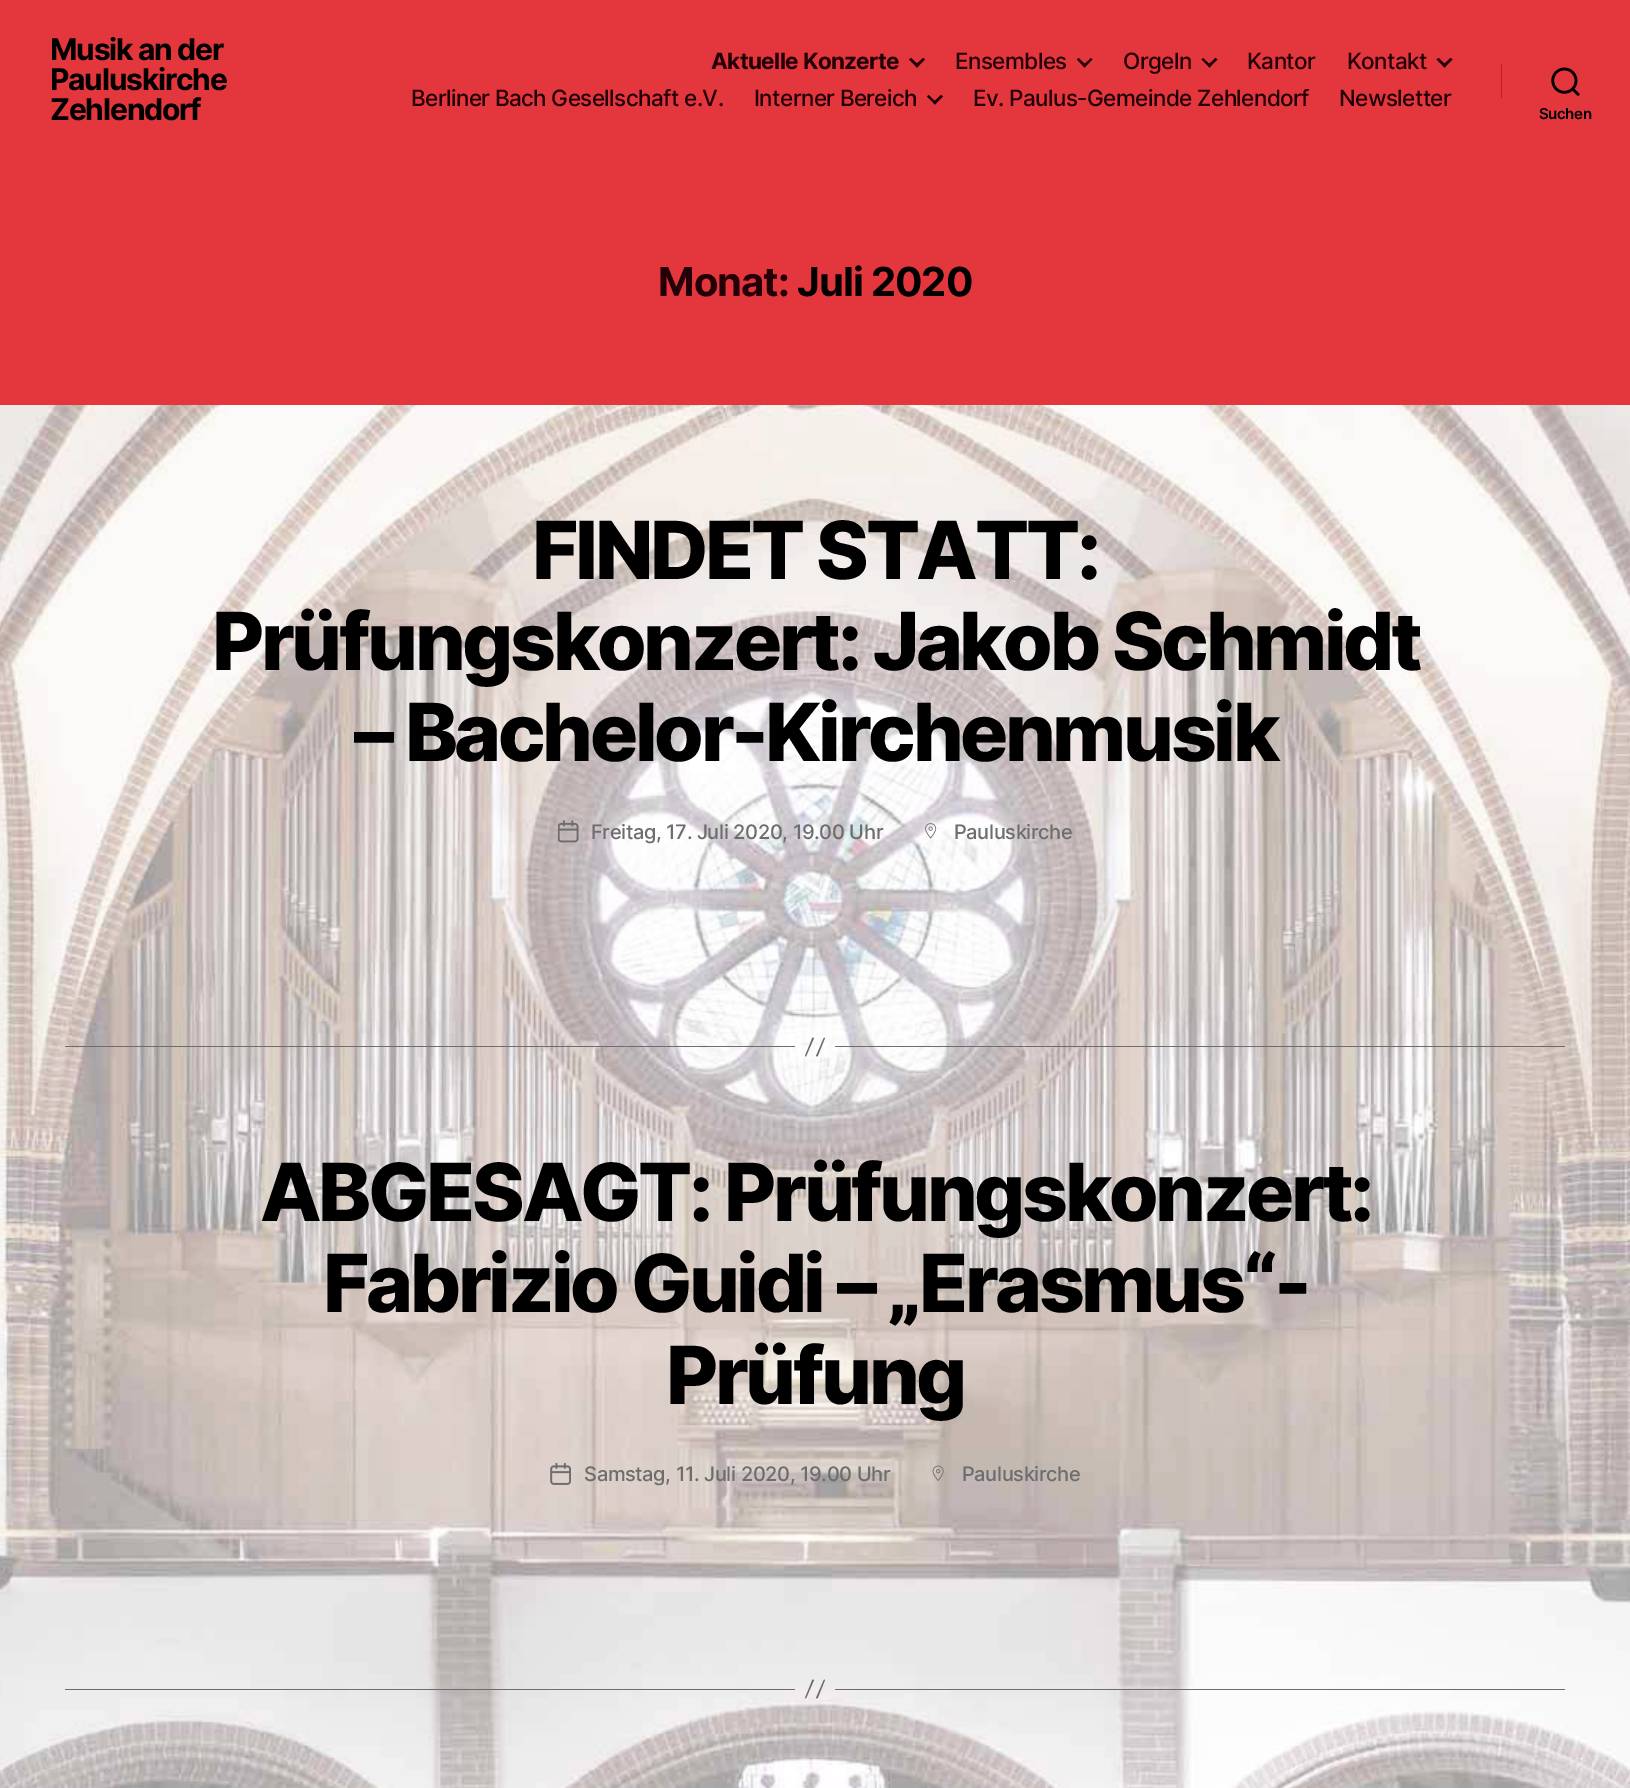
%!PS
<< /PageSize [1630 1788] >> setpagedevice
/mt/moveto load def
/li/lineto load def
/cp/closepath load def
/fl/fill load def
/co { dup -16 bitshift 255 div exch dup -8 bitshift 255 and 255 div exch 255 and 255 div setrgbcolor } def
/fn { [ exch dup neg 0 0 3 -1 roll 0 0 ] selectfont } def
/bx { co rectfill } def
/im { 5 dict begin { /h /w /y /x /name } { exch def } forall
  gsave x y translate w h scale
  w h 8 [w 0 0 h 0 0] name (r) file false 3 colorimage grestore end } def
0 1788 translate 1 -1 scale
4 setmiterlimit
0 0 1630 1788 16#FFFFFF bx
(media/1.raw) 0 405 1630 1383 im
0 0 1630 405 16#E3373D bx
16#230007 co
909 59.5 mt 911 58 li 919 65.5 li 917 67.5 li cp fl
915 65.5 mt 923 58 li 925 59.5 li 917 67.5 li cp fl
1077 59.5 mt 1078.5 58 li 1086.5 65.5 li 1084.5 67.5 li cp fl
1083 65.5 mt 1091 58 li 1092.5 59.5 li 1084.5 67.5 li cp fl
1201.5 59.5 mt 1203 58 li 1211 65.5 li 1209.5 67.5 li cp fl
1207.5 65.5 mt 1215.5 58 li 1217.5 59.5 li 1209.5 67.5 li cp fl
1436.5 59.5 mt 1438.5 58 li 1446.5 65.5 li 1444.5 67.5 li cp fl
1442.5 65.5 mt 1450.5 58 li 1452.5 59.5 li 1444.5 67.5 li cp fl
927 96.5 mt 928.5 95 li 936.5 102.5 li 935 104.5 li cp fl
933 102.5 mt 941 95 li 943 96.5 li 935 104.5 li cp fl
1501 64 1 34 16#C7181E bx
(media/2.raw) 1551 67 29 30 im
(media/3.raw) 558 820 21 23 im
(media/4.raw) 925 823 12 16 im
835 1046 730 1 16#6D6D6D bx
65 1046 730 1 16#6D6D6D bx
812.5 1037.5 mt 814 1038 li 806 1056.5 li 805 1056 li cp 824 1037.5 mt 825 1038 li 817.5 1056.5 li 816 1056 li cp fl
(media/5.raw) 550 1463 21 22 im
(media/6.raw) 932 1465 12 16 im
835 1689 730 1 16#6D6D6D bx
65 1689 730 1 16#6D6D6D bx
812.5 1679.5 mt 814 1680 li 806 1698.5 li 805 1698 li cp 824 1679.5 mt 825 1680 li 817.5 1698.5 li 816 1698 li cp fl
/Inter-Bold 30 fn
16#000000 co
50 60 mt -1.25 0 (Musik an der) ashow
50 90 mt -1.25 0 (Pauluskirche) ashow
50 120 mt -1.25 0 (Zehlendorf) ashow
/Inter-Bold 22.5 fn
16#230007 co
711 69 mt -.6 0 (Aktuelle Konzerte) ashow
/Inter-Medium 22.5 fn
955 69 mt -.6 0 (Ensembles) ashow
1123 69 mt -.6 0 (Orgeln) ashow
1247 69 mt -.6 0 (Kantor) ashow
1347 69 mt -.6 0 (Kontakt) ashow
411 106 mt -.6 0 (Berliner Bach Gesellschaft e.V.) ashow
754 106 mt -.6 0 (Interner Bereich) ashow
973 106 mt -.6 0 (Ev. Paulus-Gemeinde Zehlendorf) ashow
1339 106 mt -.6 0 (Newsletter) ashow
/Inter-SemiBold 15 fn
16#000000 co
1539 119 mt -.35 0 (Suchen) ashow
/Inter-Bold 40 fn
16#230007 co
658 296 mt -1 0 (Monat:) ashow
16#000000 co
797 296 mt -1 0 (Juli 2020) ashow
/Inter-ExtraBold 80 fn
532 579 mt -3.3 0 (FINDET STATT:) ashow
212 670 mt -3.3 0 (Prüfungskonzert: Jakob Schmidt) ashow
354 761 mt -3.3 0 (– Bachelor-Kirchenmusik) ashow
/Inter-Medium 20 fn
16#6D6D6D co
591 839 mt -.35 0 (Freitag, 17. Juli 2020, 19.00 Uhr) ashow
954 839 mt -.35 0 (Pauluskirche) ashow
/Inter-ExtraBold 80 fn
16#000000 co
260 1221 mt -3.3 0 (ABGESAGT: Prüfungskonzert:) ashow
323 1312 mt -3.3 0 (Fabrizio Guidi – „Erasmus“-) ashow
666 1404 mt -3.3 0 (Prüfung) ashow
/Inter-Medium 20 fn
16#6D6D6D co
584 1481 mt -.35 0 (Samstag, 11. Juli 2020, 19.00 Uhr) ashow
962 1481 mt -.35 0 (Pauluskirche) ashow
showpage
